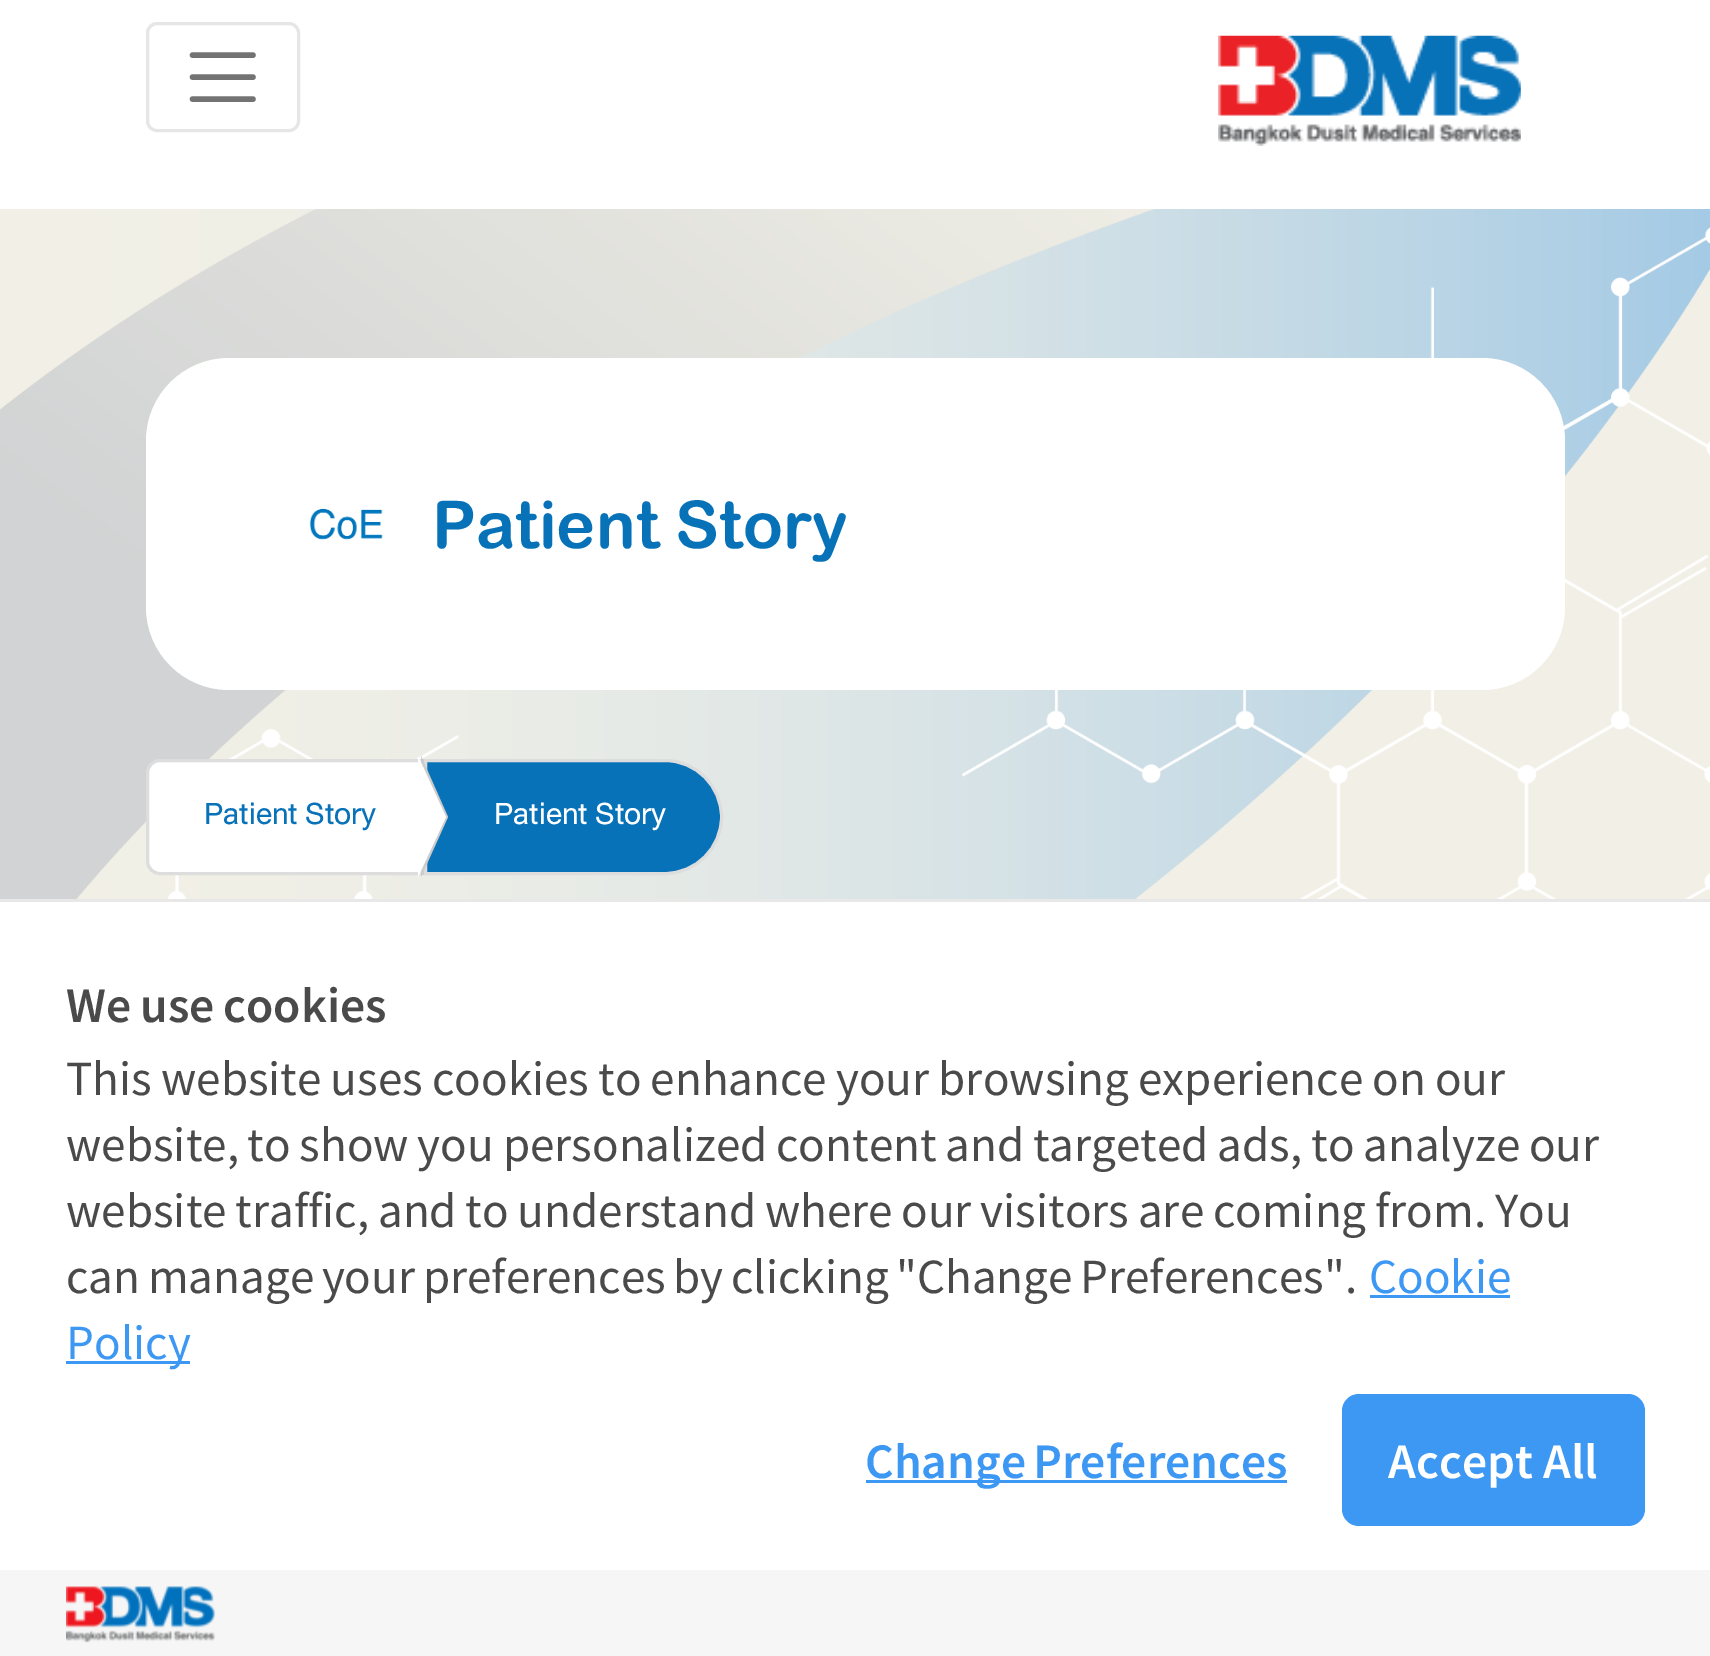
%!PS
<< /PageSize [1710 1656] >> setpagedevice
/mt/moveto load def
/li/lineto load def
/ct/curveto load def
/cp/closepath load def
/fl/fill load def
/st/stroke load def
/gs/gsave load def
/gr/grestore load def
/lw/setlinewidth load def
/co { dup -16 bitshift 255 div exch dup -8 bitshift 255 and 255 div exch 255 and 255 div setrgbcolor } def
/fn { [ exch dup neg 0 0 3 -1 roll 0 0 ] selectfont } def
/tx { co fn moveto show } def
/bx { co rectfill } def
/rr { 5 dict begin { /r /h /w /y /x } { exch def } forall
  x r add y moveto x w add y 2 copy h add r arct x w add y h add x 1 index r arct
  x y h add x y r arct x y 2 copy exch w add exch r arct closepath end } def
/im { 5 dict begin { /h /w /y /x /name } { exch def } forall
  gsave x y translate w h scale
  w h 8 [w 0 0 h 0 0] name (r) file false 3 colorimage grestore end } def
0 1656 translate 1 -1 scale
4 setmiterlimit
0 0 1710 1656 16#FFFFFF bx
(media/1.raw) 0 209 1710 690 im
16#E6E6E6 co
3 lw
147.5 23.5 151 107 9.5 rr st
16#737373 co
5.5 lw
1 setlinecap
192.5 55 mt 253 55 li 192.5 77 mt 253 77 li 192.5 99 mt 253 99 li st
(media/2.raw) 1218 35 303 111 im
16#FFFFFF co
146 358 1419 332 83 rr fl
(media/3.raw) 309 508 74 32 im
160 760.5 mt 419.5 760.5 li 419.5 873.5 li 160 873.5 li 153 873.5 147.5 868 147.5 861 ct 147.5 773 li 147.5 766 153 760.5 160 760.5 ct cp gs fl gr
16#DDDDDD co
3 lw
0 setlinecap
st
421 759 3 116 16#CCCCCC bx
16#0872B9 co
425.5 760.5 mt 665 760.5 li 696 760.5 721.5 786 721.5 817 ct 721.5 848 696 873.5 665 873.5 ct 425.5 873.5 li cp gs fl gr
16#DDDDDD co
st
16#CCCCCC co
421 877 mt 421 756 li 448 817 li cp fl
16#FFFFFF co
418 877 mt 418 756 li 446 817 li cp fl
0 899 1710 3 16#E8E8E8 bx
1370 1295 140 3 16#3D98F3 bx
66 1361 124 3 16#3D98F3 bx
866 1480 421 3 16#3D98F3 bx
1342 1394 303 132 17 rr fl
0 1570 1710 86 16#F6F6F6 bx
(media/4.raw) 66 1586 149 57 im
(Patient Story) 432 548 /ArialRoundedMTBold-Bold 66 16#0872B9 tx
(Patient Story) 204 824 /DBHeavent-Regular 44 16#0872B9 tx
(Patient Story) 494 824 /DBHeavent-Regular 44 16#FFFFFF tx
/NotoSansJP-SemiBold 44 fn
16#4A4A4A co
66 1022 mt -1 0 32 (We use cookies) widthshow
/NotoSansJP-Regular 44 fn
66 1095 mt -.75 0 32 (This website uses cookies to enhance your browsing experience on our) widthshow
66 1161 mt -1.1 0 32 (website, to show you personalized content and targeted ads, to analyze our) widthshow
66 1227 mt -1.1 0 32 (website traffic, and to understand where our visitors are coming from. You) widthshow
66 1293 mt -2.25 0 32 (can manage your preferences by clicking "Change Preferences".) widthshow
(Cookie) 1369 1293 /NotoSansJP-Regular 44 16#3D98F3 tx
(Policy) 66 1359 /NotoSansJP-Regular 44 16#3D98F3 tx
/NotoSansJP-SemiBold 44 fn
865 1478 mt -3 0 32 (Change Preferences) widthshow
(Accept All) 1388 1478 /NotoSansJP-SemiBold 44 16#FFFFFF tx
showpage
